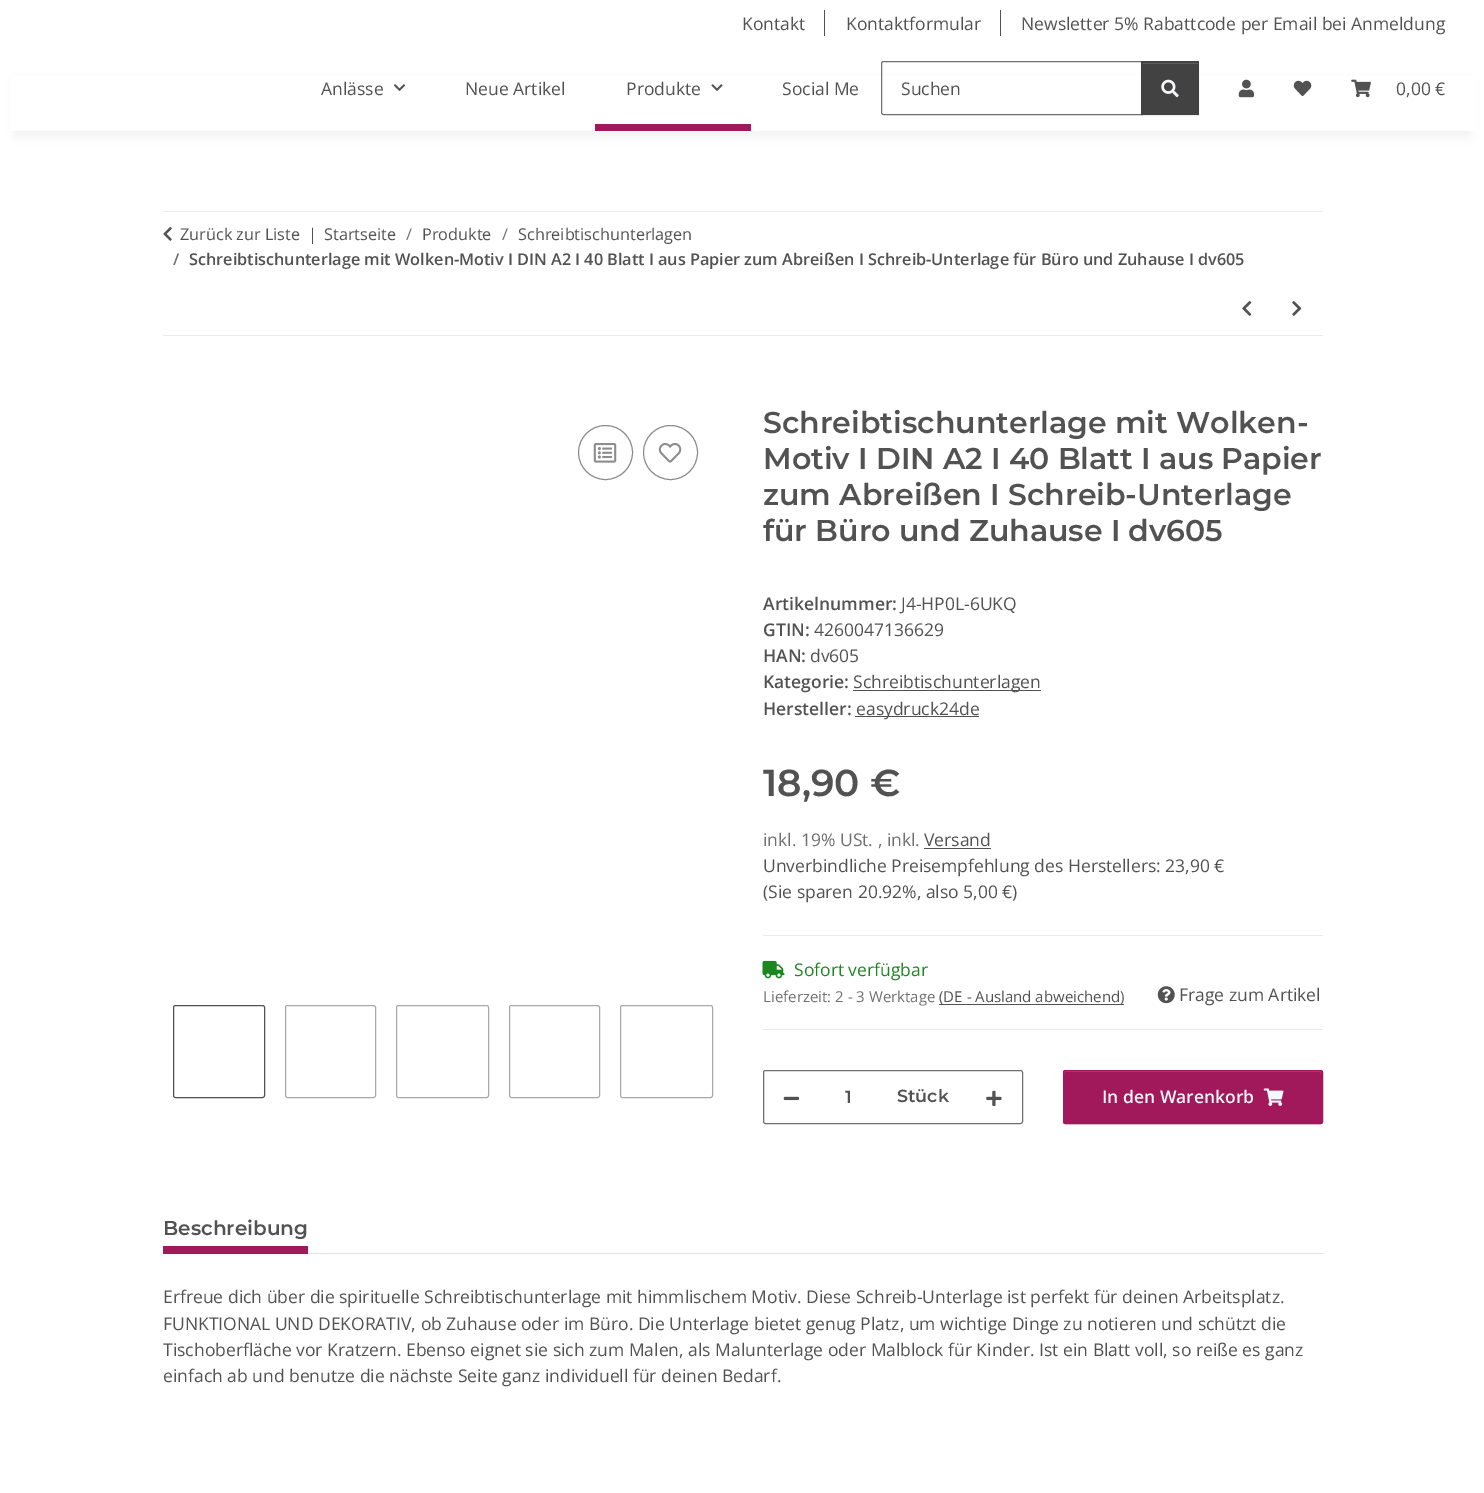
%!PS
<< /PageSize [1484 1493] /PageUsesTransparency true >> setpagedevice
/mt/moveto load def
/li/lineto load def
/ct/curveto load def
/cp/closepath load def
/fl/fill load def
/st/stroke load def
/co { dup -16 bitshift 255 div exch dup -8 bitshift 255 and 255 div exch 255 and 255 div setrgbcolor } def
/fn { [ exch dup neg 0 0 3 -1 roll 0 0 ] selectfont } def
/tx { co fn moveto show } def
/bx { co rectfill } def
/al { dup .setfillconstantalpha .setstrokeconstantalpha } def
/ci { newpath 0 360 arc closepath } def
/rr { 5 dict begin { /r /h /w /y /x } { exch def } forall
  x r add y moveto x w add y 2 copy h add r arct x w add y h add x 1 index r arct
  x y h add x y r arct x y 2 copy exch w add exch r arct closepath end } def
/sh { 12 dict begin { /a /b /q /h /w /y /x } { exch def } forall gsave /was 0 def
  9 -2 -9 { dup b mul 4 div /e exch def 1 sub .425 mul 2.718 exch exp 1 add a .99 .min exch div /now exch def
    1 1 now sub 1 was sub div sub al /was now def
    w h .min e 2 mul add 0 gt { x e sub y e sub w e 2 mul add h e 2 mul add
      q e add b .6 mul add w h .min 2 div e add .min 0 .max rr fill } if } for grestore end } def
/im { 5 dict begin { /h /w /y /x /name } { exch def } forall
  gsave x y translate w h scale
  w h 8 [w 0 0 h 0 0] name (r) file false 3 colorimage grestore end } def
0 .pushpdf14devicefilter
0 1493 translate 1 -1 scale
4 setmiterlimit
0 0 1484 1493 16#FFFFFF bx
824 10 1 26 16#525252 bx
1000 10 1 26 16#525252 bx
16#000000 co
15 81 1455 55 0 5.5 .06 sh
10 76 1465 55 16#FFFFFF bx
(media/1.raw) 393 84 12 7 im
(media/2.raw) 711 84 12 7 im
595 124 156 7 16#A2195B bx
16#707070 co
883.5 61.5 mt 1142.5 61.5 li 1142.5 114.5 li 883.5 114.5 li 882.5 114.5 881.5 113.5 881.5 112.5 ct 881.5 63.5 li 881.5 62.5 882.5 61.5 883.5 61.5 ct cp st
16#000000 co
1141 63 58 53 0 .5 .07 sh
1141 61 58 54 16#424242 bx
1143 63 55 1 16#5E5E5E bx
(media/3.raw) 1161 79 18 19 im
(media/4.raw) 1238 79 17 19 im
(media/5.raw) 1293 80 19 17 im
(media/6.raw) 1351 79 20 19 im
163 211 1160 1 16#EBEBEB bx
163 335 1160 1 16#EBEBEB bx
(media/7.raw) 163 227 9 14 im
(media/8.raw) 1242 301 10 15 im
(media/9.raw) 1292 301 10 15 im
16#8D8D8D co
605.5 452.5 27 ci st
(media/10.raw) 593 443 24 20 im
670.5 452.5 27 ci st
(media/11.raw) 658 443 24 20 im
16#525252 co
173.5 1005.5 91 92 2 rr st
16#A9A9A9 co
285.5 1005.5 90 92 2 rr st
396.5 1005.5 92 92 2 rr st
509.5 1005.5 90 92 2 rr st
620.5 1005.5 92 92 2 rr st
853 690 188 1 16#525252 bx
855 716 124 1 16#525252 bx
924 848 67 1 16#525252 bx
763 935 560 1 16#EBEBEB bx
763 1029 560 1 16#EBEBEB bx
(media/12.raw) 762 960 23 19 im
939 1004 185 1 16#525252 bx
(media/13.raw) 1157 986 18 18 im
16#707070 co
763.5 1070.5 259 53 2 rr st
(media/14.raw) 783 1096 17 5 im
(media/15.raw) 986 1090 16 17 im
16#000000 co
1063 1071 260 54 2.5 .5 .07 sh
16#A2195B co
1063 1070 260 54 2.5 rr fl
16#B03C74 co
1065 1072 mt 1320 1072 li 1321 1072 1321 1073 1321 1074 ct 1321 1071 li 1065 1071 li 1064 1071 1064 1073 1064 1074 ct 1064 1073 1064 1072 1065 1072 ct cp fl
16#A2195B co
1063.5 1070.5 259 53 2 rr st
(media/16.raw) 1263 1088 21 18 im
308 1253 1015 1 16#DEE2E6 bx
163 1246 145 8 16#A2195B bx
(Kontakt) 742 30 /OpenSans-Regular 17.5 16#525252 tx
(Kontaktformular) 846 30 /OpenSans-Regular 17.5 16#525252 tx
(Newsletter 5% Rabattcode per Email bei Anmeldung) 1021 30 /OpenSans-Regular 17.5 16#525252 tx
(Anlässe) 321 95 /OpenSans-Regular 17.5 16#525252 tx
(Neue Artikel) 465 95 /OpenSans-Regular 17.5 16#525252 tx
(Produkte) 626 95 /OpenSans-Regular 17.5 16#525252 tx
(Social Me) 782 95 /OpenSans-Regular 17.5 16#525252 tx
(Suchen) 901 95 /OpenSans-Regular 17.5 16#525252 tx
(0,00 €) 1396 95 /OpenSans-Regular 17.5 16#525252 tx
(Zurück zur Liste) 180 240 /OpenSans-Regular 16.25 16#525252 tx
(|) 308 240 /OpenSans-Regular 16.25 16#525252 tx
(Startseite) 324 240 /OpenSans-Regular 16.25 16#525252 tx
(/) 406 240 /OpenSans-Regular 16.25 16#707070 tx
(Produkte) 422 240 /OpenSans-Regular 16.25 16#525252 tx
(/) 502 240 /OpenSans-Regular 16.25 16#707070 tx
(Schreibtischunterlagen) 518 240 /OpenSans-Regular 16.25 16#525252 tx
(/) 173 265 /OpenSans-SemiBold 16.25 16#707070 tx
(Schreibtischunterlage mit Wolken-Motiv I DIN A2 I 40 Blatt I aus Papier zum Abreißen I Schreib-Unterlage für Büro und Zuhause I dv605) 189 265 /OpenSans-SemiBold 16.25 16#525252 tx
(Schreibtischunterlage mit Wolken-) 763 433 /Montserrat-SemiBold 30 16#525252 tx
(Motiv I DIN A2 I 40 Blatt I aus Papier) 763 469 /Montserrat-SemiBold 30 16#525252 tx
(zum Abreißen I Schreib-Unterlage) 763 505 /Montserrat-SemiBold 30 16#525252 tx
(für Büro und Zuhause I dv605) 763 541 /Montserrat-SemiBold 30 16#525252 tx
(Artikelnummer:) 763 610 /OpenSans-SemiBold 17.5 16#525252 tx
(J4-HP0L-6UKQ) 901 610 /OpenSans-Regular 17.5 16#525252 tx
(GTIN:) 763 636 /OpenSans-SemiBold 17.5 16#525252 tx
(4260047136629) 814 636 /OpenSans-Regular 17.5 16#525252 tx
(HAN:) 763 662 /OpenSans-SemiBold 17.5 16#525252 tx
(dv605) 810 662 /OpenSans-Regular 17.5 16#525252 tx
(Kategorie:) 763 688 /OpenSans-SemiBold 17.5 16#525252 tx
(Schreibtischunterlagen) 853 688 /OpenSans-Regular 17.5 16#525252 tx
(Hersteller:) 763 715 /OpenSans-SemiBold 17.5 16#525252 tx
(easydruck24de) 856 715 /OpenSans-Regular 17.5 16#525252 tx
(18,90 €) 763 796 /Montserrat-SemiBold 37.5 16#525252 tx
(inkl. 19% USt. , inkl.) 763 846 /OpenSans-Regular 17.5 16#707070 tx
(Versand) 924 846 /OpenSans-Regular 17.5 16#525252 tx
(Unverbindliche Preisempfehlung des Herstellers: 23,90 €) 763 872 /OpenSans-Regular 17.5 16#525252 tx
(\(Sie sparen 20.92%, also 5,00 €\)) 763 898 /OpenSans-Regular 17.5 16#525252 tx
(Sofort verfügbar) 794 976 /OpenSans-Regular 17.5 16#1C871E tx
(Lieferzeit: 2 - 3 Werktage) 763 1002 /OpenSans-Regular 15 16#707070 tx
(\(DE - Ausland abweichend\)) 939 1002 /OpenSans-Regular 15 16#525252 tx
(Frage zum Artikel) 1179 1001 /OpenSans-Regular 17.5 16#525252 tx
(1) 845 1103 /Montserrat-SemiBold 17.5 16#525252 tx
(Stück) 897 1102 /Montserrat-SemiBold 17.5 16#525252 tx
(In den Warenkorb) 1102 1103 /OpenSans-SemiBold 17.5 16#F5F7FA tx
(Beschreibung) 163 1235 /Montserrat-SemiBold 20 16#525252 tx
(Erfreue dich über die spirituelle Schreibtischunterlage mit himmlischem Motiv. Diese Schreib-Unterlage ist perfekt für deinen Arbeitsplatz.) 163 1303 /OpenSans-Regular 17.5 16#525252 tx
(FUNKTIONAL UND DEKORATIV, ob Zuhause oder im Büro. Die Unterlage bietet genug Platz, um wichtige Dinge zu notieren und schützt die) 163 1330 /OpenSans-Regular 17.5 16#525252 tx
(Tischoberfläche vor Kratzern. Ebenso eignet sie sich zum Malen, als Malunterlage oder Malblock für Kinder. Ist ein Blatt voll, so reiße es ganz) 163 1356 /OpenSans-Regular 17.5 16#525252 tx
(einfach ab und benutze die nächste Seite ganz individuell für deinen Bedarf.) 163 1382 /OpenSans-Regular 17.5 16#525252 tx
.poppdf14devicefilter showpage
